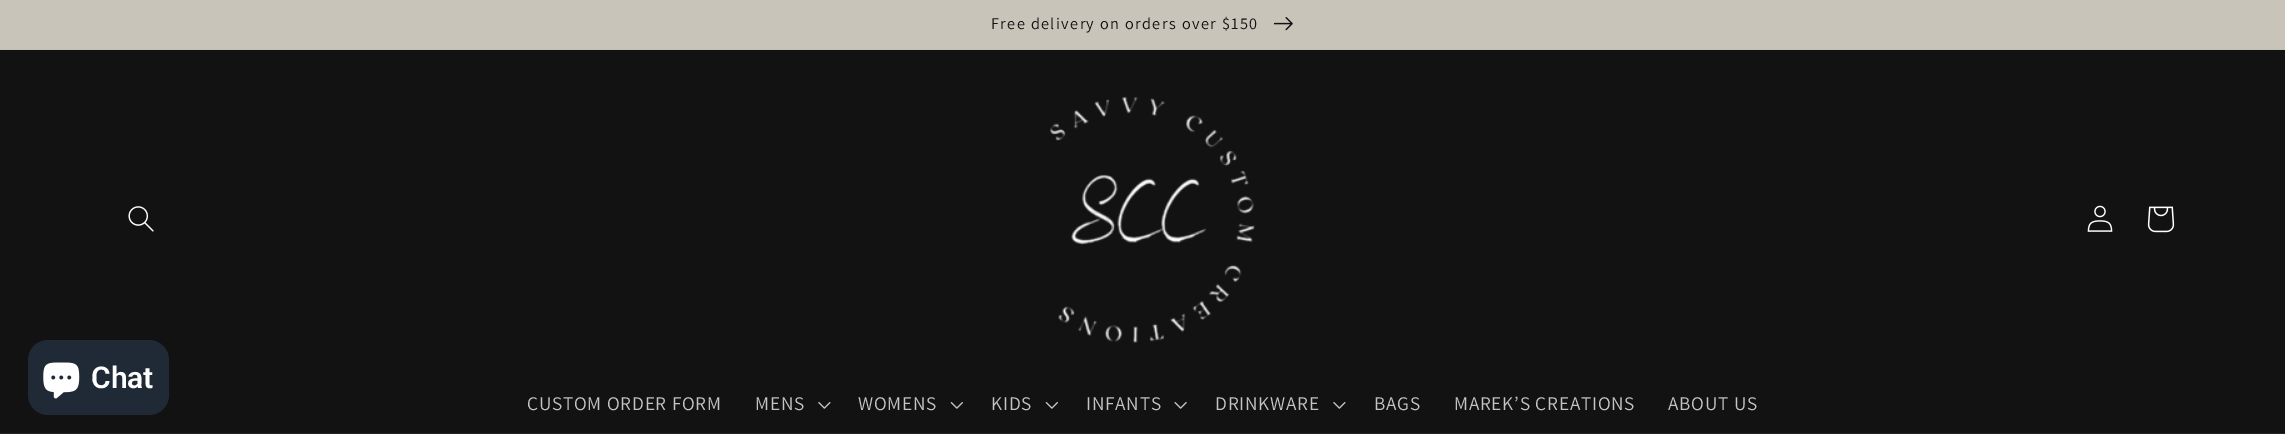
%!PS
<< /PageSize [2285 441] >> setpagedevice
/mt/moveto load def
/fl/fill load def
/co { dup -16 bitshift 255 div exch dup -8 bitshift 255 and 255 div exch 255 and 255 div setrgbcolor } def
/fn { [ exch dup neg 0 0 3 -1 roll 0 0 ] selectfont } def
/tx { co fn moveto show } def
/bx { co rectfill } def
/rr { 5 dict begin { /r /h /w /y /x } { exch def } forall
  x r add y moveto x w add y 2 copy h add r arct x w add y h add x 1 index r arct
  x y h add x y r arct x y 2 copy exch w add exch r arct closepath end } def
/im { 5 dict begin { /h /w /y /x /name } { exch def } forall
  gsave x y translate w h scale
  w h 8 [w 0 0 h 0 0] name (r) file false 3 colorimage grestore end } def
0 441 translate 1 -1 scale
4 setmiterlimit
0 0 2285 441 16#FFFFFF bx
0 49 2285 1 16#C4C0B5 bx
0 0 2285 49 16#C8C4B9 bx
(media/1.raw) 1274 17 19 14 im
0 50 2285 383 16#121212 bx
16#202A36 co
28 340 141 75 20 rr fl
(media/2.raw) 43 362 37 37 im
0 433 2285 1 16#252525 bx
(media/3.raw) 128 206 26 26 im
(media/4.raw) 1050 96 205 247 im
(media/5.raw) 2087 205 26 27 im
(media/6.raw) 2147 206 28 27 im
(media/7.raw) 818 402 13 7 im
(media/8.raw) 950 402 13 7 im
(media/8.raw) 1045 402 13 7 im
(media/9.raw) 1174 402 13 7 im
(media/7.raw) 1333 402 13 7 im
/Assistant-Regular 16.25 fn
16#121212 co
991 29 mt 1.4 0 (Free delivery on orders over $150) ashow
(Chat) 91 388 /Roboto-SemiBold 30 16#FFFFFF tx
/Assistant-Regular 19.25 fn
16#C4C4C4 co
527 410 mt .8 0 (CUSTOM ORDER FORM) ashow
755 410 mt .8 0 (MENS) ashow
858 410 mt .8 0 (WOMENS) ashow
991 410 mt .8 0 (KIDS) ashow
1086 410 mt .8 0 (INFANTS) ashow
1215 410 mt .8 0 (DRINKWARE) ashow
1374 410 mt .8 0 (BAGS) ashow
1454 410 mt .8 0 (MAREK’S CREATIONS) ashow
1668 410 mt .8 0 (ABOUT US) ashow
showpage
